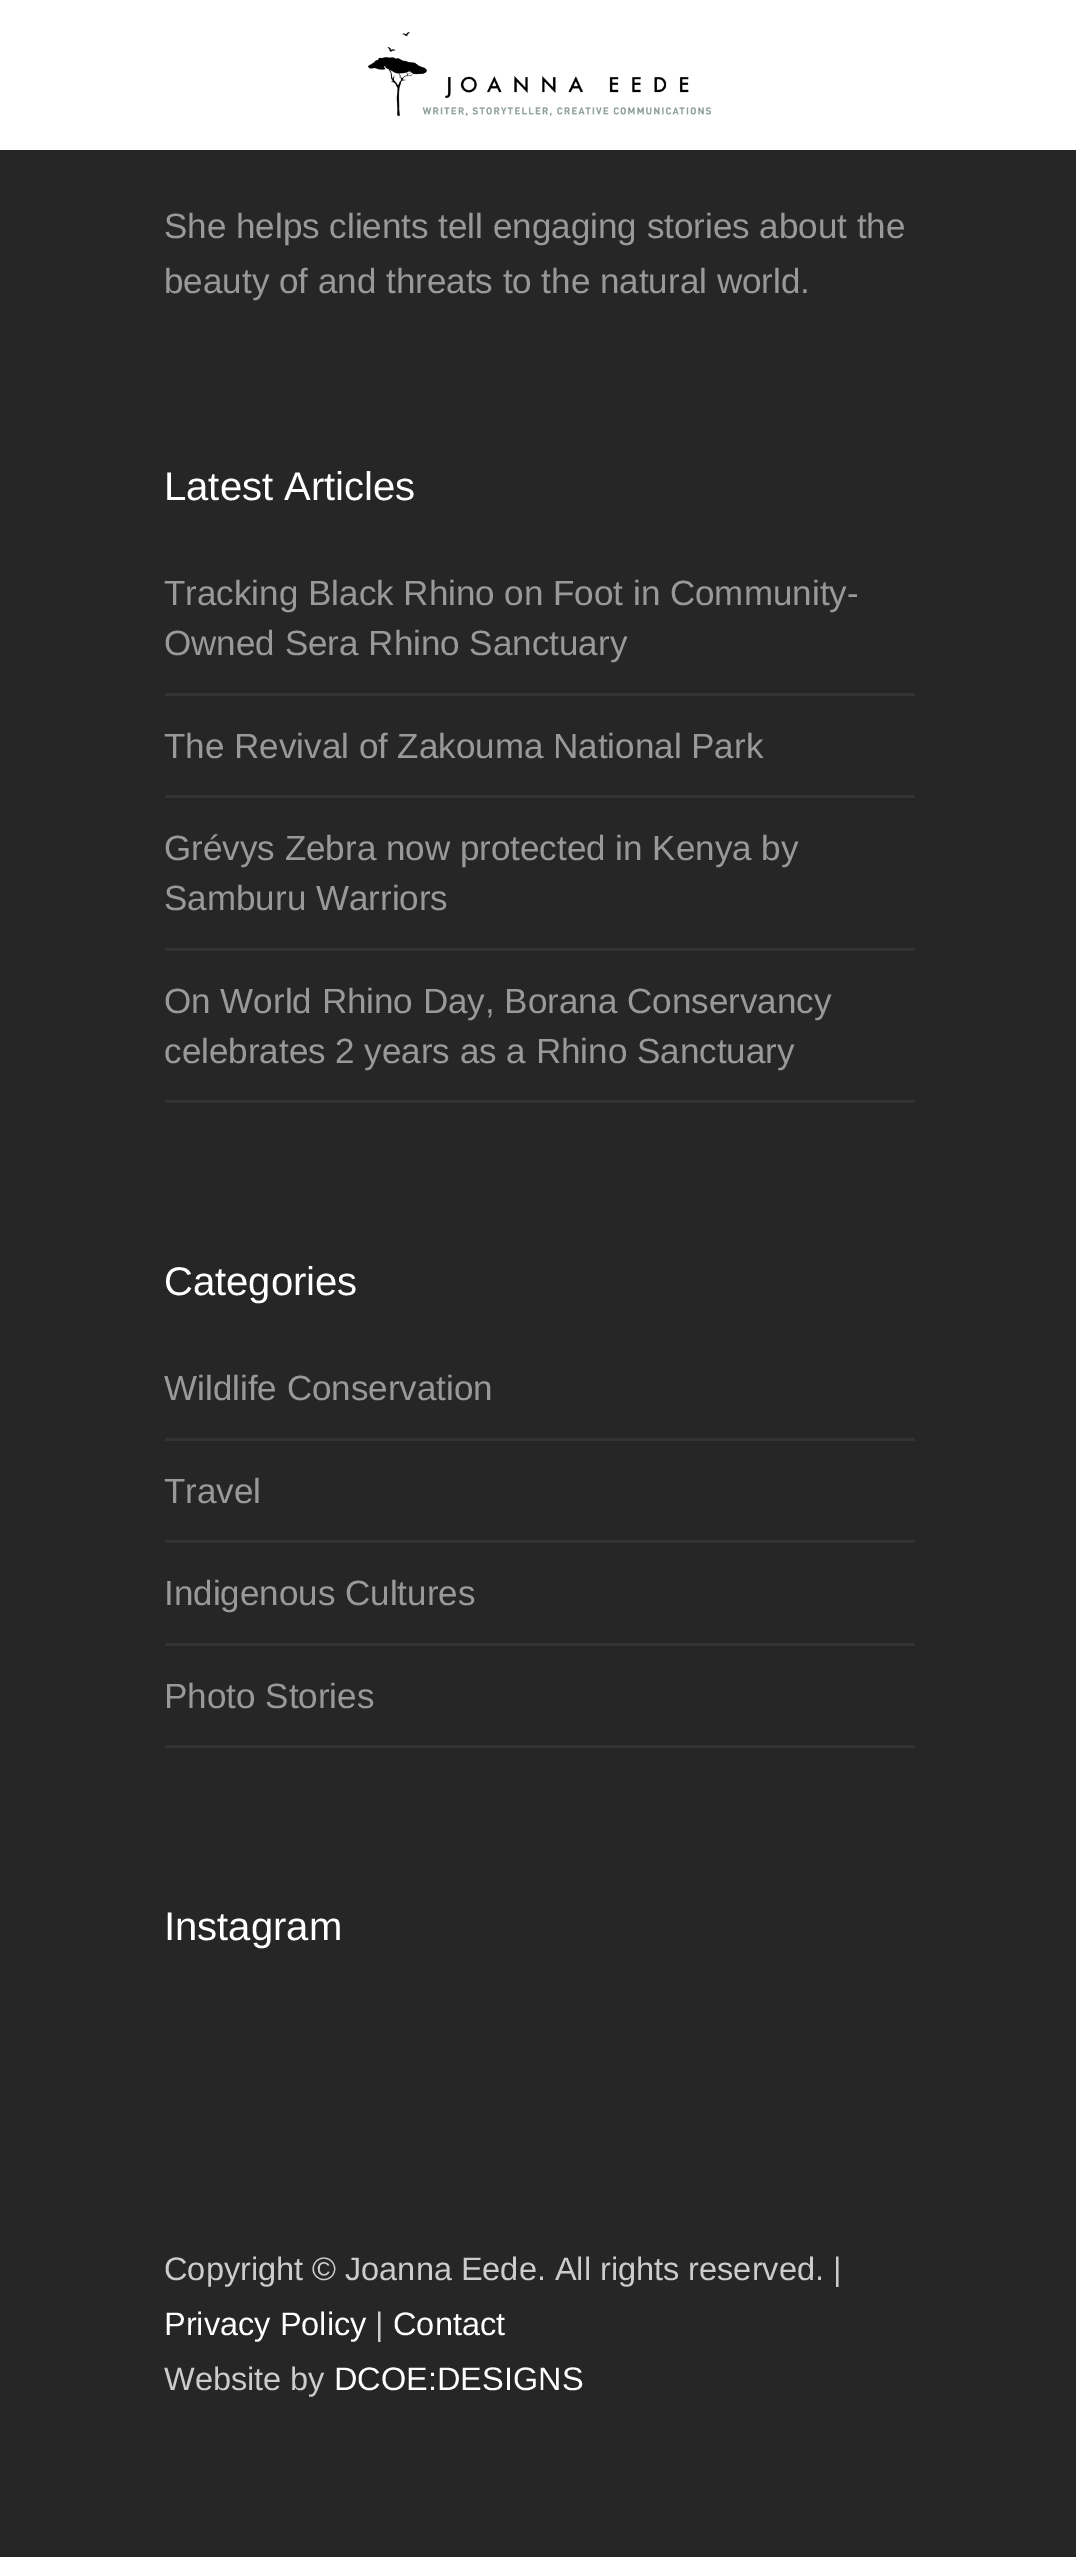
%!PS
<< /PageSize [1076 2557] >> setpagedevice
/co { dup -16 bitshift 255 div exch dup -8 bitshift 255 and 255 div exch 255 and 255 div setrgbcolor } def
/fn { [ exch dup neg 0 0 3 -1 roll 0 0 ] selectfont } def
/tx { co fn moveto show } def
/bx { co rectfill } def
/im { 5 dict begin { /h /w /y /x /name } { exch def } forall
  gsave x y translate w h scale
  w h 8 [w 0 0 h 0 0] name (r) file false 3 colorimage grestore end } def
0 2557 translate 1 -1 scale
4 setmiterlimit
0 0 1076 2557 16#262626 bx
0 0 1076 150 16#FFFFFF bx
(media/1.raw) 368 32 344 85 im
165 693 750 3 16#333333 bx
165 795 750 3 16#333333 bx
165 948 750 3 16#333333 bx
165 1100 750 3 16#333333 bx
165 1438 750 3 16#333333 bx
165 1540 750 3 16#333333 bx
165 1643 750 3 16#333333 bx
165 1745 750 3 16#333333 bx
(She helps clients tell engaging stories about the) 164 238 /LiberationSans-Regular 35 16#999999 tx
(beauty of and threats to the natural world.) 164 293 /LiberationSans-Regular 35 16#999999 tx
(Latest Articles) 164 500 /LiberationSans-Regular 40 16#FFFFFF tx
(Tracking Black Rhino on Foot in Community-) 164 605 /LiberationSans-Regular 35 16#999999 tx
(Owned Sera Rhino Sanctuary) 164 655 /LiberationSans-Regular 35 16#999999 tx
(The Revival of Zakouma National Park) 164 758 /LiberationSans-Regular 35 16#999999 tx
(Grévys Zebra now protected in Kenya by) 164 860 /LiberationSans-Regular 35 16#999999 tx
(Samburu Warriors) 164 910 /LiberationSans-Regular 35 16#999999 tx
(On World Rhino Day, Borana Conservancy) 164 1013 /LiberationSans-Regular 35 16#999999 tx
(celebrates 2 years as a Rhino Sanctuary) 164 1063 /LiberationSans-Regular 35 16#999999 tx
(Categories) 164 1295 /LiberationSans-Regular 40 16#FFFFFF tx
(Wildlife Conservation) 164 1400 /LiberationSans-Regular 35 16#999999 tx
(Travel) 164 1503 /LiberationSans-Regular 35 16#999999 tx
(Indigenous Cultures) 164 1605 /LiberationSans-Regular 35 16#999999 tx
(Photo Stories) 164 1708 /LiberationSans-Regular 35 16#999999 tx
(Instagram) 164 1940 /LiberationSans-Regular 40 16#FFFFFF tx
(Copyright © Joanna Eede. All rights reserved. |) 164 2280 /LiberationSans-Regular 32.5 16#CCCCCC tx
(Privacy Policy) 164 2335 /LiberationSans-Regular 32.5 16#FFFFFF tx
(|) 375 2335 /LiberationSans-Regular 32.5 16#CCCCCC tx
(Contact) 393 2335 /LiberationSans-Regular 32.5 16#FFFFFF tx
(Website by) 164 2390 /LiberationSans-Regular 32.5 16#CCCCCC tx
(DCOE:DESIGNS) 334 2390 /LiberationSans-Regular 32.5 16#FFFFFF tx
showpage
